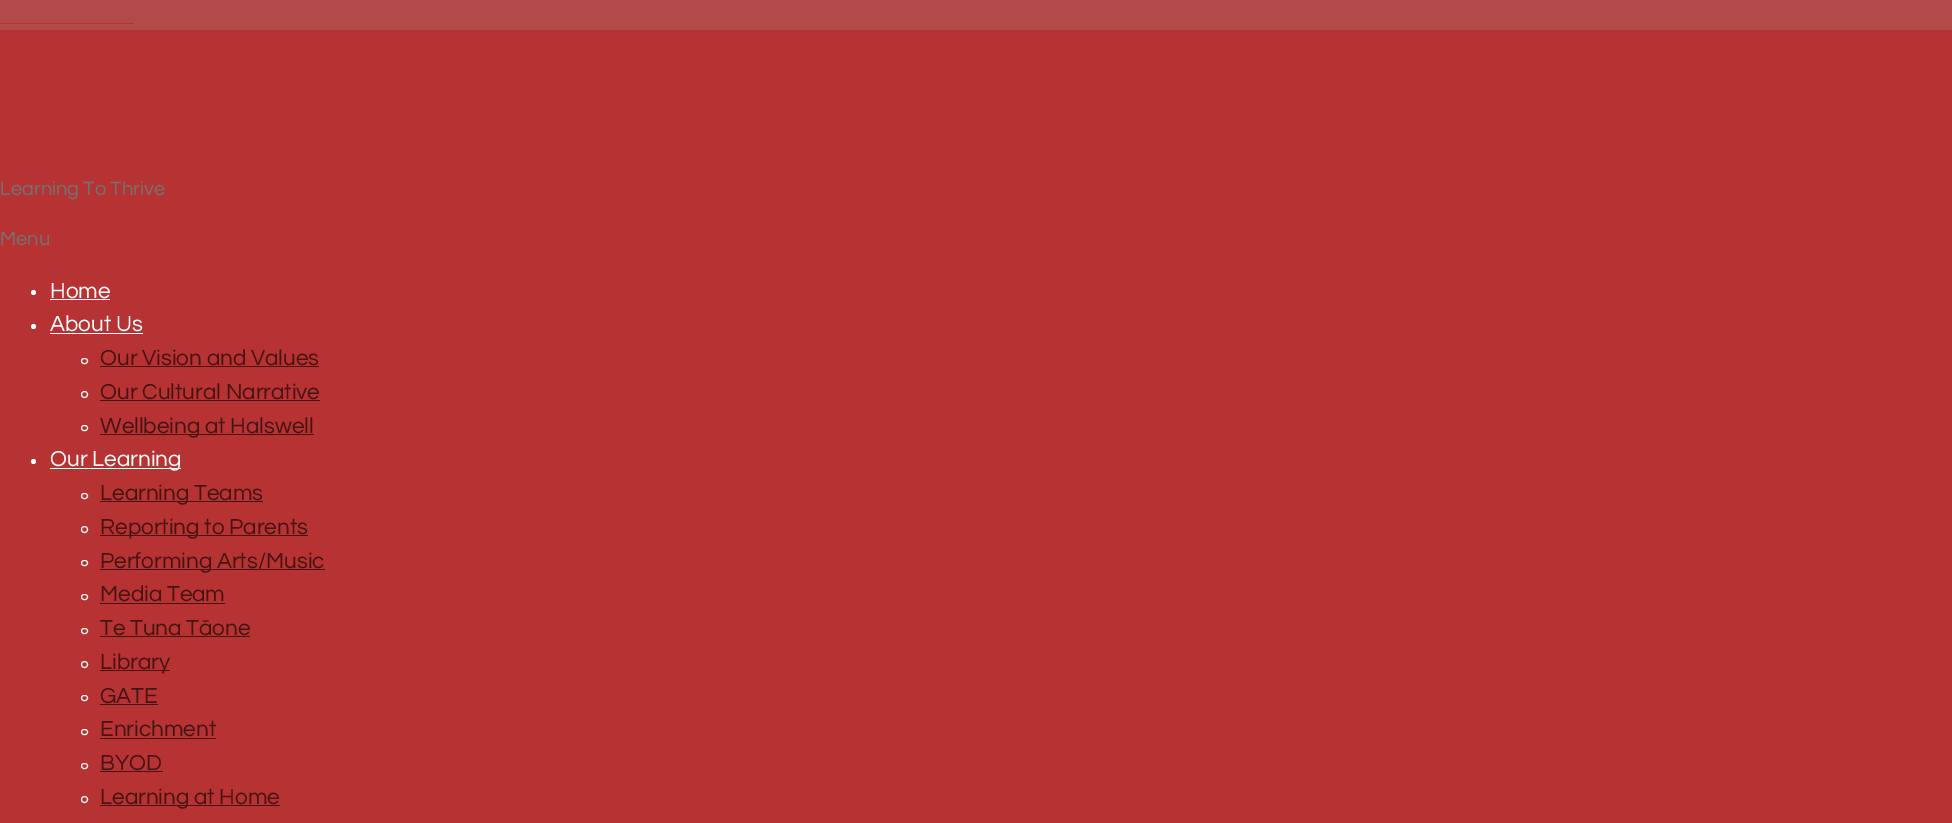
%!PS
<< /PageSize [1952 823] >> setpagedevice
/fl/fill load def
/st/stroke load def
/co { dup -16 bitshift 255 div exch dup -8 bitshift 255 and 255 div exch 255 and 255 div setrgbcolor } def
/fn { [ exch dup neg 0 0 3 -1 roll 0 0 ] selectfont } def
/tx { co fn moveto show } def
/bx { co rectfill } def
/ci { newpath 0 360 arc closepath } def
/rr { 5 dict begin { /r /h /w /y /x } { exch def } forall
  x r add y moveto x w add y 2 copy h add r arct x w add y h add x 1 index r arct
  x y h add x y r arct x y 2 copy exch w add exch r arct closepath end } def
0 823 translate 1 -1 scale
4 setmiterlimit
0 0 1952 823 16#B34A4A bx
0 23 134 1 16#B73333 bx
0 30 1952 793 16#B73333 bx
16#FFFFFF co
33.5 292.5 2.5 ci fl
50 299 60 1 16#FFFFFF bx
33.5 326.5 2.5 ci fl
50 333 93 1 16#FFFFFF bx
81.5 358.5 6 5 2.5 rr st
100 366 219 1 16#461313 bx
16#FFFFFF co
84.5 394.5 3 ci st
100 400 220 1 16#461313 bx
16#FFFFFF co
81.5 425.5 6 5 2.5 rr st
100 434 214 1 16#461313 bx
16#FFFFFF co
33.5 461.5 2.5 ci fl
50 468 131 1 16#FFFFFF bx
81.5 493.5 6 5 2.5 rr st
100 501 163 1 16#461313 bx
16#FFFFFF co
84.5 529.5 3 ci st
100 535 208 1 16#461313 bx
16#FFFFFF co
81.5 560.5 6 5 2.5 rr st
100 569 225 1 16#461313 bx
16#FFFFFF co
81.5 594.5 6 5 2.5 rr st
100 603 125 1 16#461313 bx
16#FFFFFF co
81.5 628.5 6 5 2.5 rr st
100 636 150 1 16#461313 bx
16#FFFFFF co
84.5 664.5 3 ci st
100 670 70 1 16#461313 bx
16#FFFFFF co
81.5 695.5 6 5 2.5 rr st
100 704 58 1 16#461313 bx
16#FFFFFF co
81.5 729.5 6 5 2.5 rr st
100 738 116 1 16#461313 bx
16#FFFFFF co
81.5 763.5 6 5 2.5 rr st
100 771 63 1 16#461313 bx
16#FFFFFF co
84.5 799.5 3 ci st
100 805 180 1 16#461313 bx
(Learning To Thrive) 0 195 /Questrial-Regular 20 16#737373 tx
(Menu) 0 245 /Questrial-Regular 20 16#737373 tx
(Home) 50 298 /Questrial-Regular 22.5 16#FFFFFF tx
(About Us) 50 331 /Questrial-Regular 22.5 16#FFFFFF tx
(Our Vision and Values) 100 365 /Questrial-Regular 22.5 16#461313 tx
(Our Cultural Narrative) 100 399 /Questrial-Regular 22.5 16#461313 tx
(Wellbeing at Halswell) 100 433 /Questrial-Regular 22.5 16#461313 tx
(Our Learning) 50 466 /Questrial-Regular 22.5 16#FFFFFF tx
(Learning Teams) 100 500 /Questrial-Regular 22.5 16#461313 tx
(Reporting to Parents) 100 534 /Questrial-Regular 22.5 16#461313 tx
(Performing Arts/Music) 100 568 /Questrial-Regular 22.5 16#461313 tx
(Media Team) 100 601 /Questrial-Regular 22.5 16#461313 tx
(Te Tuna Tāone) 100 635 /Questrial-Regular 22.5 16#461313 tx
(Library) 100 669 /Questrial-Regular 22.5 16#461313 tx
(GATE) 100 703 /Questrial-Regular 22.5 16#461313 tx
(Enrichment) 100 736 /Questrial-Regular 22.5 16#461313 tx
(BYOD) 100 770 /Questrial-Regular 22.5 16#461313 tx
(Learning at Home) 100 804 /Questrial-Regular 22.5 16#461313 tx
showpage
